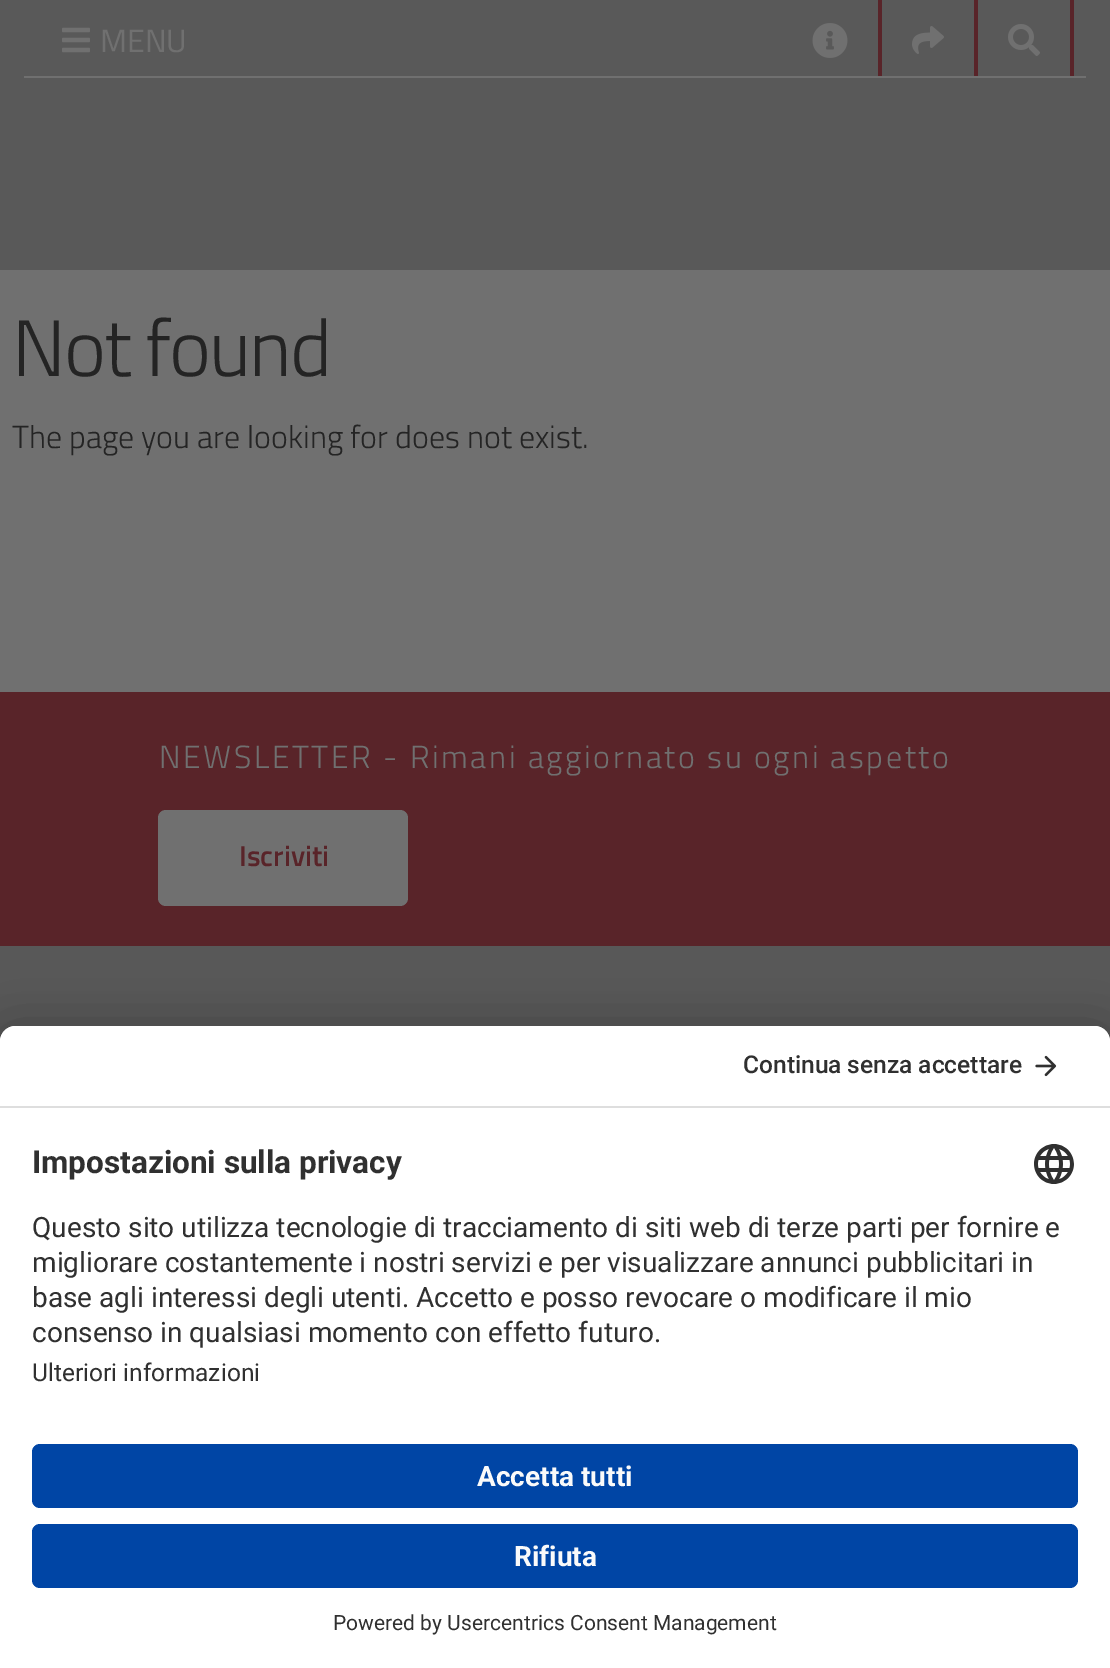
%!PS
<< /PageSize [1110 1668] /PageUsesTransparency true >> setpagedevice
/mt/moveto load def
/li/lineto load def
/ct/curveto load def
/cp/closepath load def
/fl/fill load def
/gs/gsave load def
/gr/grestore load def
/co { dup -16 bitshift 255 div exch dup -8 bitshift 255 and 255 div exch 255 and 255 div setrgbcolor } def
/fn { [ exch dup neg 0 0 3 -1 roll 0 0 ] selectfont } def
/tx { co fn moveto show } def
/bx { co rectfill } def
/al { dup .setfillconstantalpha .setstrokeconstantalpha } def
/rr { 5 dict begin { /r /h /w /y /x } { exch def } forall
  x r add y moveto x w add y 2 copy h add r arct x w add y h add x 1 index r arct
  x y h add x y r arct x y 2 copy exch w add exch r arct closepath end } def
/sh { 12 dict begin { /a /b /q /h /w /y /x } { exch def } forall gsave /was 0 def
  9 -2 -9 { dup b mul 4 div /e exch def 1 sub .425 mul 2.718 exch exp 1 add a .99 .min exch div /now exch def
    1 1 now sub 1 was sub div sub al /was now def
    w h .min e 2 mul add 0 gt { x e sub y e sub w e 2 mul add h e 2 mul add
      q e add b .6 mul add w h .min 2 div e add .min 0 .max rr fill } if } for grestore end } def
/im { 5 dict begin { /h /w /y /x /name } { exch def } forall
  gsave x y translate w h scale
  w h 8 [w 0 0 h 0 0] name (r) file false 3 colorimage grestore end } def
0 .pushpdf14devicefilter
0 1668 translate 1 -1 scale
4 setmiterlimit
0 0 1110 1668 16#707070 bx
0 0 1110 270 16#595959 bx
24 76 1062 2 16#707070 bx
878 0 4 76 16#592429 bx
(media/1.raw) 812 23 36 35 im
974 0 4 76 16#592429 bx
(media/2.raw) 912 26 32 28 im
1070 0 4 76 16#592429 bx
(media/3.raw) 1008 24 32 32 im
(media/4.raw) 62 27 28 26 im
gs 0 946 mt 1110 946 li 1110 1042 li 0 1042 li cp clip newpath
<< /ShadingType 2 /ColorSpace /DeviceRGB /Coords [555 692 555 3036] /Extend [true true] /Function << /FunctionType 3 /Domain [0 1] /Functions [<< /FunctionType 2 /Domain [0 1] /C0 [.361 .361 .361] /C1 [.361 .361 .361] /N 1 >> << /FunctionType 2 /Domain [0 1] /C0 [.361 .361 .361] /C1 [.192 .192 .196] /N 1 >> << /FunctionType 2 /Domain [0 1] /C0 [.192 .192 .196] /C1 [.192 .192 .196] /N 1 >>] /Bounds [.05 .95] /Encode [0 1 0 1 0 1] >> >> shfill gr
0 692 1110 254 16#592429 bx
16#707070 co
158 810 250 96 8 rr fl
16#000000 co
0 1066 1110 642 16 28 .3 sh
0 1036 1110 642 16 26 .22 sh
16#FFFFFF co
16 1026 mt 1094 1026 li 1103 1026 1110 1033 1110 1042 ct 1110 1668 li 0 1668 li 0 1042 li 0 1033 7 1026 16 1026 ct cp fl
16 1026 mt 1094 1026 li 1103 1026 1110 1033 1110 1042 ct 1110 1108 li 0 1108 li 0 1042 li 0 1033 7 1026 16 1026 ct cp fl
0 1106 1110 2 16#DEDEDE bx
(media/5.raw) 1035 1055 22 22 im
(media/6.raw) 1034 1144 40 40 im
16#0045A5 co
32 1444 1046 64 8 rr fl
32 1524 1046 64 8 rr fl
(MENU) 100 52 /TitilliumWeb-Regular 32 16#707070 tx
/TitilliumWeb-Light 80 fn
16#242424 co
12 376 mt -2 0 (Not found) ashow
(The page you are looking for does not exist.) 12 448 /TitilliumWeb-Light 32 16#242424 tx
16#707070 co
159 768 mt 2.6 0 (NEWSLETTER - Rimani aggiornato su ogni aspetto) ashow
(Iscriviti) 239 866 /TitilliumWeb-SemiBold 29 16#592429 tx
(Continua senza accettare) 743 1073 /Roboto-Medium 24.5 16#303030 tx
(Impostazioni sulla privacy) 32 1173 /Roboto-Bold 31.5 16#303030 tx
(Questo sito utilizza tecnologie di tracciamento di siti web di terze parti per fornire e) 32 1237 /Roboto-Regular 28 16#303030 tx
(migliorare costantemente i nostri servizi e per visualizzare annunci pubblicitari in) 32 1272 /Roboto-Regular 28 16#303030 tx
(base agli interessi degli utenti. Accetto e posso revocare o modificare il mio) 32 1307 /Roboto-Regular 28 16#303030 tx
(consenso in qualsiasi momento con effetto futuro.) 32 1342 /Roboto-Regular 28 16#303030 tx
(Ulteriori informazioni) 32 1381 /Roboto-Regular 24.5 16#303030 tx
(Accetta tutti) 477 1486 /Roboto-Bold 28 16#FAFAFA tx
(Rifiuta) 514 1566 /Roboto-Bold 28 16#FAFAFA tx
(Powered by Usercentrics Consent Management) 333 1630 /Roboto-Regular 21 16#303030 tx
.poppdf14devicefilter showpage
